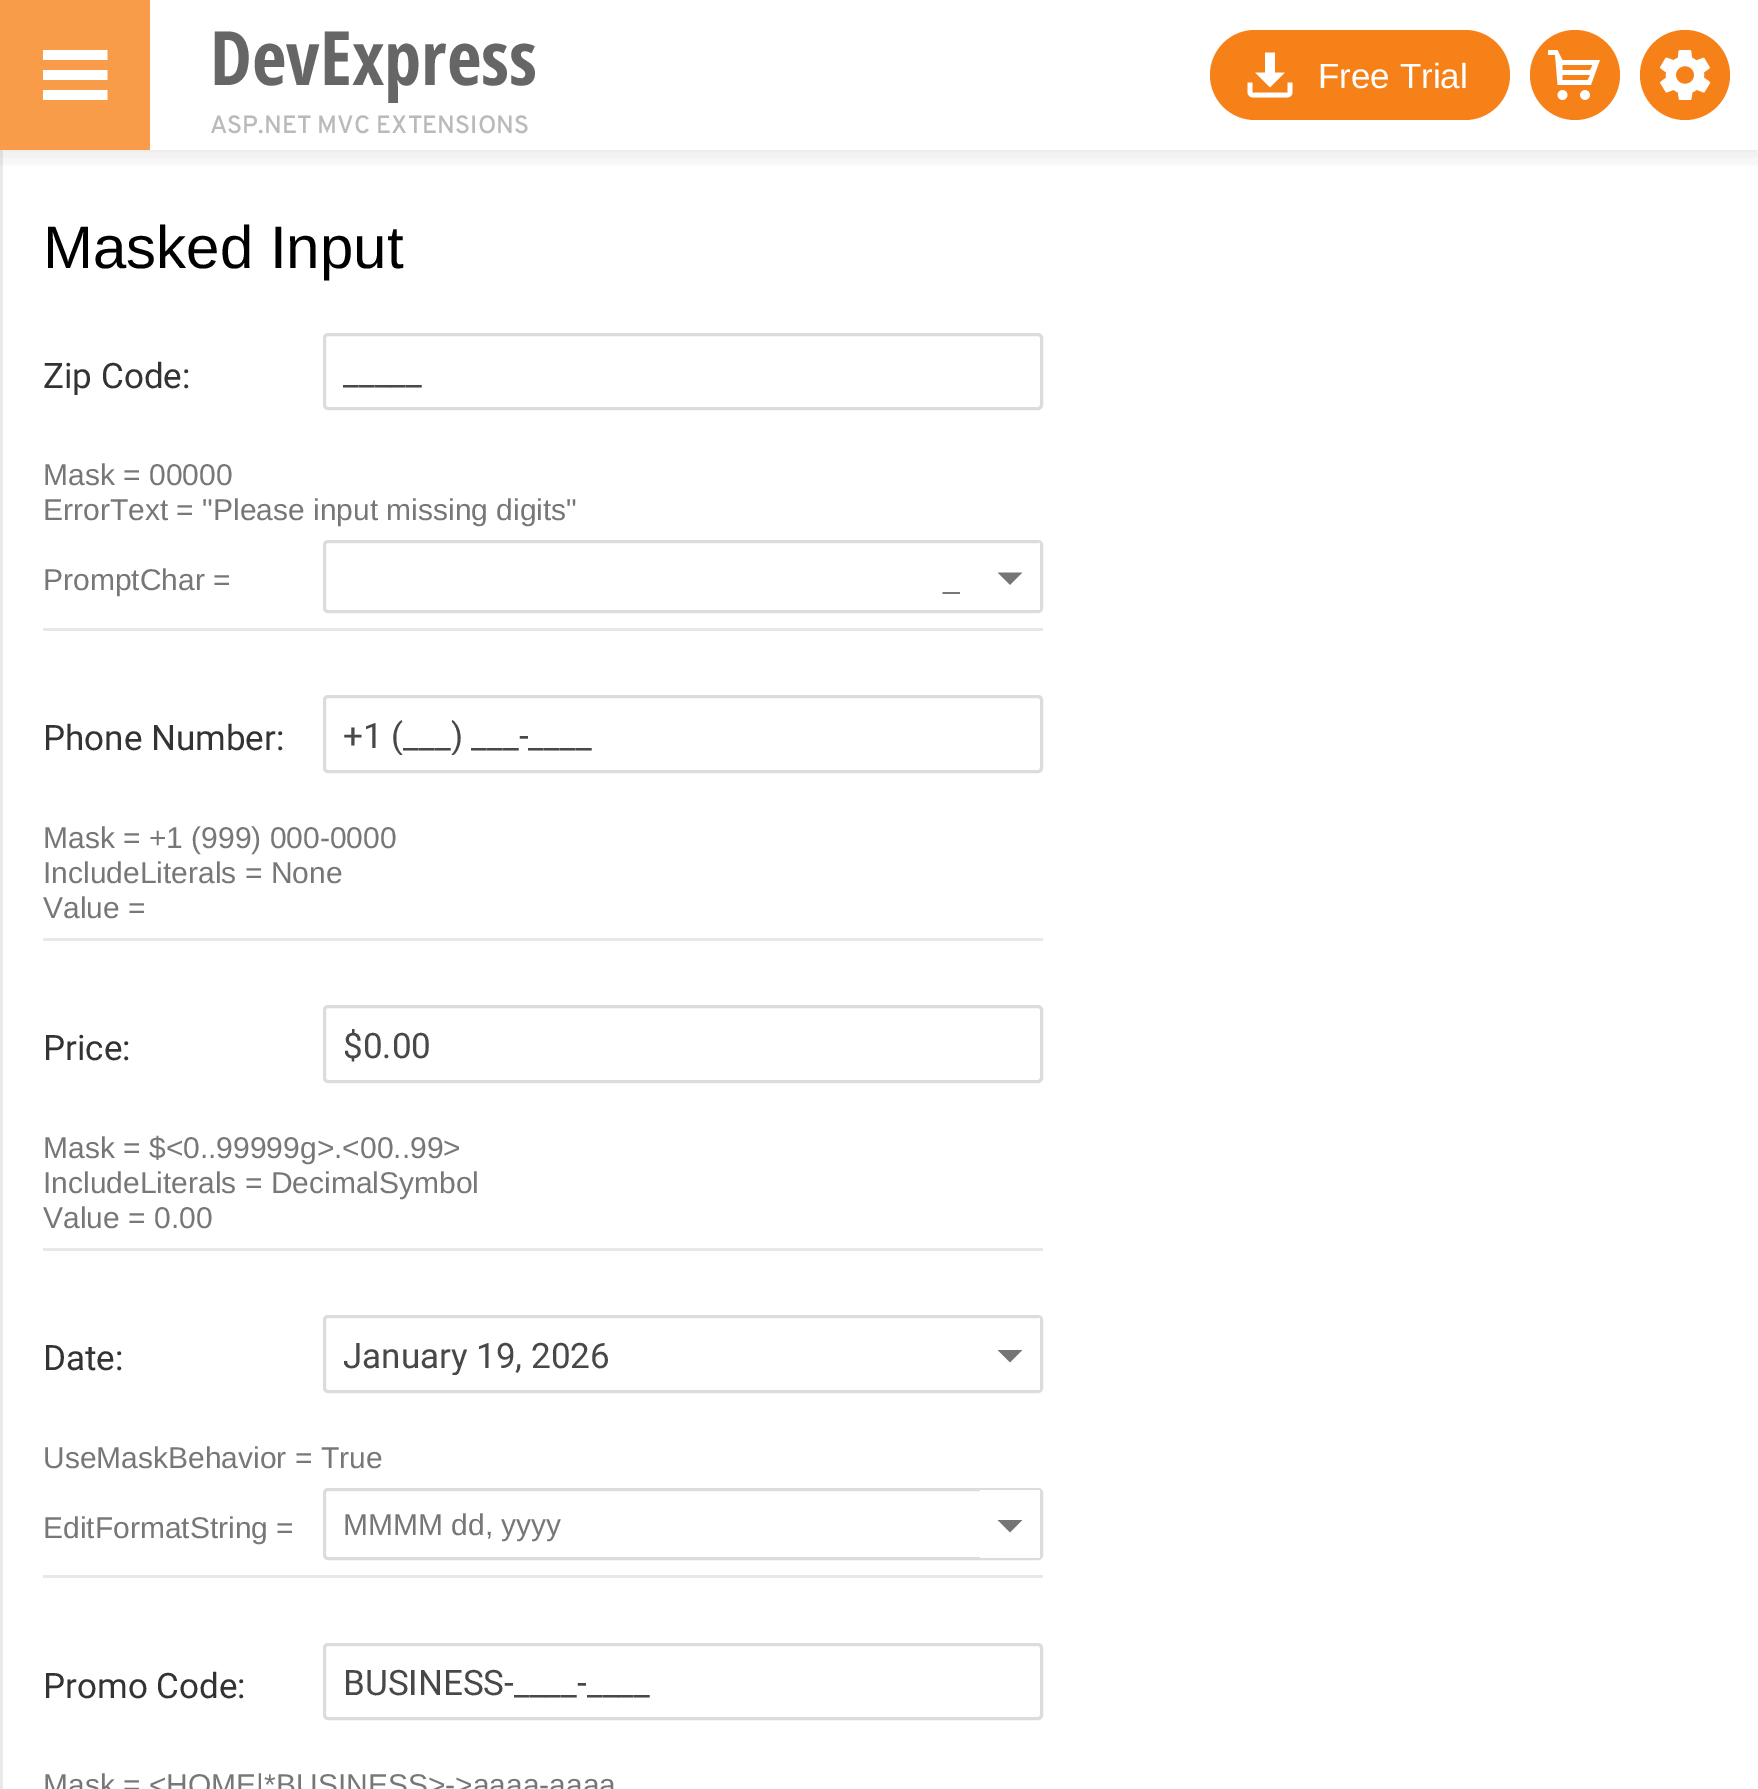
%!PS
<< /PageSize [1758 1789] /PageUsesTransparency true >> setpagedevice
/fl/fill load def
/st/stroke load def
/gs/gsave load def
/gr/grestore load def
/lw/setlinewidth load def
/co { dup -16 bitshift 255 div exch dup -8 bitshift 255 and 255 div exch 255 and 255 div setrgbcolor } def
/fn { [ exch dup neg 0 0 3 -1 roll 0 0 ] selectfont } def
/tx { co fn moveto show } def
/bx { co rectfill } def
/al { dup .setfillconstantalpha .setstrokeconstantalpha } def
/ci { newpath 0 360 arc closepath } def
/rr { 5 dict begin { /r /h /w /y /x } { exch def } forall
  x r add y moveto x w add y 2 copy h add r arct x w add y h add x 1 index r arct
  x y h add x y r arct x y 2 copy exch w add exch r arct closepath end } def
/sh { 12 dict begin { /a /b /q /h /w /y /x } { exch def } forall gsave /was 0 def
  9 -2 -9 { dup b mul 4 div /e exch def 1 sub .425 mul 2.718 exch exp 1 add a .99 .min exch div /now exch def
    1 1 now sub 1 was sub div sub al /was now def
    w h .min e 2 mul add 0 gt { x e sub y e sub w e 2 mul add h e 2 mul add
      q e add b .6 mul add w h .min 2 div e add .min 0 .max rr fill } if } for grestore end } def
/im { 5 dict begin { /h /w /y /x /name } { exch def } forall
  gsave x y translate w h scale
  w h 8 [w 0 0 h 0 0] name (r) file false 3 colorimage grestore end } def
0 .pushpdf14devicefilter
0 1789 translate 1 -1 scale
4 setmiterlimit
0 0 1758 1789 16#FFFFFF bx
0 150 3 1639 16#EAE9E9 bx
gs
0 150 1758 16 rectclip
16#000000 co
0 5 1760 150 0 12.5 .1 sh
gr
0 0 150 150 16#F99C4A bx
(media/1.raw) 43 50 65 50 im
16#F78119 co
1210 30 300 90 45 rr fl
(media/2.raw) 1247 52 46 46 im
1575 75 45 ci fl
(media/3.raw) 1548 50 52 50 im
1685 75 45 ci fl
(media/4.raw) 1660 50 51 50 im
16#DCDCDC co
3 lw
324.5 334.5 717 74 3.5 rr st
324.5 541.5 717 70 3.5 rr st
1038 543 2 67 16#FFFFFF bx
(media/5.raw) 998 572 25 13 im
43 628 1000 3 16#E8E8E8 bx
16#DCDCDC co
324.5 696.5 717 75 3.5 rr st
43 938 1000 3 16#E8E8E8 bx
16#DCDCDC co
324.5 1006.5 717 75 3.5 rr st
43 1248 1000 3 16#E8E8E8 bx
16#DCDCDC co
324.5 1316.5 717 75 3.5 rr st
1038 1318 2 72 16#FFFFFF bx
(media/6.raw) 998 1350 25 13 im
16#DCDCDC co
324.5 1489.5 717 69 3.5 rr st
980 1490 60 68 16#FFFFFF bx
(media/6.raw) 998 1520 25 13 im
43 1575 1000 3 16#E8E8E8 bx
16#DCDCDC co
324.5 1644.5 717 74 3.5 rr st
(DevExpress) 210 85 /OpenSansCondensed-Bold 75 16#666666 tx
(ASP.NET MVC EXTENSIONS) 210 133 /Overpass-SemiBold 25 16#BABABA tx
(Free Trial) 1318 88 /LiberationSans-Regular 35 16#FFFFFF tx
(Masked Input) 43 268 /LiberationSans-Regular 60 16#000000 tx
(Zip Code:) 43 388 /Roboto-Regular 35 16#333333 tx
gs
343 353 677 40 rectclip
(_____) 343 385 /Roboto-Regular 35 16#484848 tx
gr
(Mask = 00000) 43 485 /LiberationSans-Regular 30 16#777777 tx
(ErrorText = "Please input missing digits") 43 520 /LiberationSans-Regular 30 16#777777 tx
(PromptChar =) 43 590 /LiberationSans-Regular 30 16#777777 tx
(_) 943 588 /LiberationSans-Regular 30 16#777777 tx
(Phone Number:) 43 750 /Roboto-Regular 35 16#333333 tx
gs
343 715 677 40 rectclip
(+1 \(___\) ___-____) 343 748 /Roboto-Regular 35 16#484848 tx
gr
(Mask = +1 \(999\) 000-0000) 43 848 /LiberationSans-Regular 30 16#777777 tx
(IncludeLiterals = None) 43 883 /LiberationSans-Regular 30 16#777777 tx
(Value =) 43 918 /LiberationSans-Regular 30 16#777777 tx
(Price:) 43 1060 /Roboto-Regular 35 16#333333 tx
($0.00) 343 1058 /Roboto-Regular 35 16#484848 tx
(Mask = $<0..99999g>.<00..99>) 43 1158 /LiberationSans-Regular 30 16#777777 tx
(IncludeLiterals = DecimalSymbol) 43 1193 /LiberationSans-Regular 30 16#777777 tx
(Value = 0.00) 43 1228 /LiberationSans-Regular 30 16#777777 tx
(Date:) 43 1370 /Roboto-Regular 35 16#333333 tx
gs
343 1335 617 40 rectclip
(January 19, 2026) 343 1368 /Roboto-Regular 35 16#484848 tx
gr
(UseMaskBehavior = True) 43 1468 /LiberationSans-Regular 30 16#777777 tx
(EditFormatString =) 43 1538 /LiberationSans-Regular 30 16#777777 tx
(MMMM dd, yyyy) 343 1535 /LiberationSans-Regular 30 16#777777 tx
(Promo Code:) 43 1698 /Roboto-Regular 35 16#333333 tx
(BUSINESS-____-____) 343 1695 /Roboto-Regular 35 16#484848 tx
(Mask = <HOME|*BUSINESS>->aaaa-aaaa) 43 1795 /LiberationSans-Regular 30 16#777777 tx
.poppdf14devicefilter showpage
